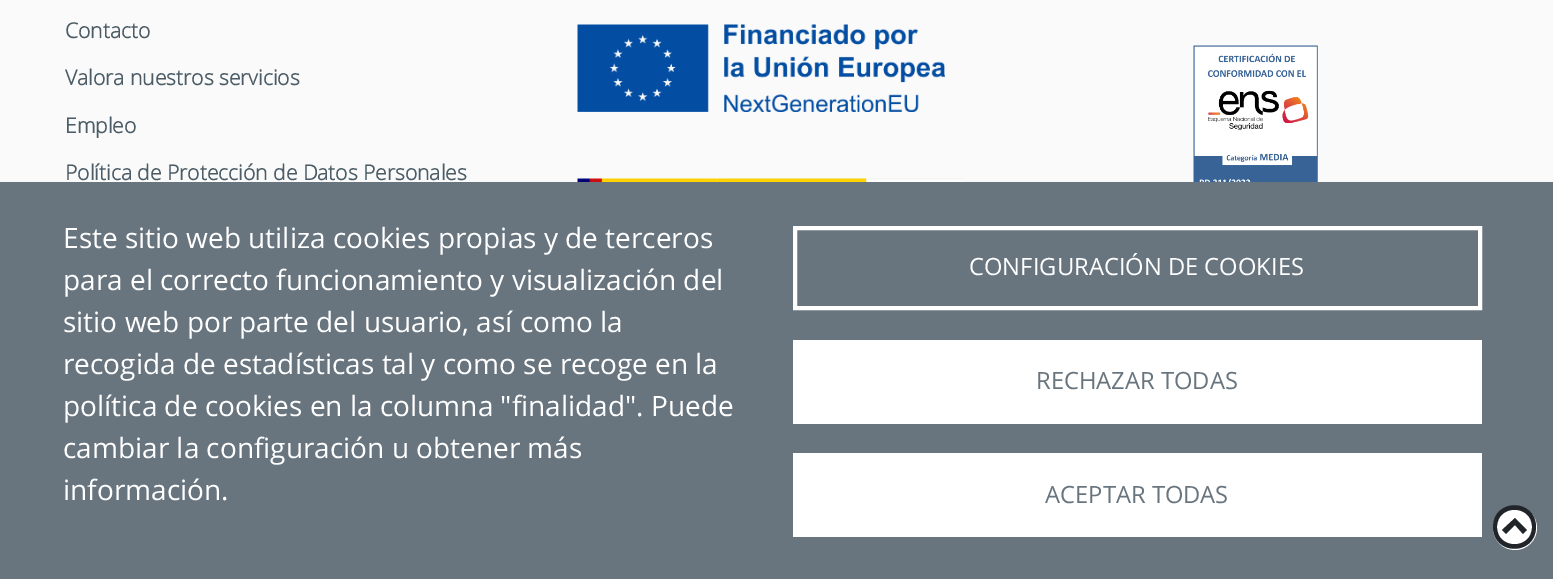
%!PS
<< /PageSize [1553 579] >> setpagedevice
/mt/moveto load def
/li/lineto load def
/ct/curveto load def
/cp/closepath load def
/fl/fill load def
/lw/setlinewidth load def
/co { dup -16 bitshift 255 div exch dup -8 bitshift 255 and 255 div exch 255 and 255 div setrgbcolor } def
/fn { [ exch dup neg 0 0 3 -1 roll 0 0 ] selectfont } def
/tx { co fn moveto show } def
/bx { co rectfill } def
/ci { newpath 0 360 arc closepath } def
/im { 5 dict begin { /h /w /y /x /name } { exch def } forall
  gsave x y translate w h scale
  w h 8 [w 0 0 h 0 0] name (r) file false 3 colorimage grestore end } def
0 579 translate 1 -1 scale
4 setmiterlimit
0 0 1553 579 16#FAFAFA bx
(media/1.raw) 577 24 368 88 im
(media/2.raw) 577 178 386 4 im
(media/3.raw) 1193 45 125 137 im
0 182 1553 397 16#68757E bx
16#FFFFFF co
1515 528 22 ci fl
16#212529 co
1493 527 mt 1493 556 1536 556 1536 527 ct 1536 498 1493 498 1493 527 ct cp 1532 527 mt 1532 550 1497 550 1497 527 ct 1497 504 1532 504 1532 527 ct cp 1523 534 mt 1527 530 li 1515 518 li 1502 530 li 1506 534 li 1515 525 li cp fl
16#FFFFFF co
4 lw
795 228 685 80 rectstroke
793 340 689 84 16#FFFFFF bx
793 453 689 84 16#FFFFFF bx
(Contacto) 65 38 /OpenSans-Bold 21 16#4B5C66 tx
(Valora nuestros servicios) 65 85 /OpenSans-Bold 21 16#4B5C66 tx
(Empleo) 65 133 /OpenSans-Bold 21 16#4B5C66 tx
(Política de Protección de Datos Personales) 65 180 /OpenSans-Bold 21 16#4B5C66 tx
(Este sitio web utiliza cookies propias y de terceros) 63 248 /OpenSans-Regular 28 16#FFFFFF tx
(para el correcto funcionamiento y visualización del) 63 290 /OpenSans-Regular 28 16#FFFFFF tx
(sitio web por parte del usuario, así como la) 63 332 /OpenSans-Regular 28 16#FFFFFF tx
(recogida de estadísticas tal y como se recoge en la) 63 374 /OpenSans-Regular 28 16#FFFFFF tx
(política de cookies en la columna "finalidad". Puede) 63 416 /OpenSans-Regular 28 16#FFFFFF tx
(cambiar la configuración u obtener más) 63 458 /OpenSans-Regular 28 16#FFFFFF tx
(información.) 63 500 /OpenSans-Regular 28 16#FFFFFF tx
(CONFIGURACIÓN DE COOKIES) 969 275 /OpenSans-Regular 23.75 16#FFFFFF tx
(RECHAZAR TODAS) 1036 389 /OpenSans-Regular 23.75 16#68757E tx
(ACEPTAR TODAS) 1045 503 /OpenSans-Regular 23.75 16#68757E tx
showpage
